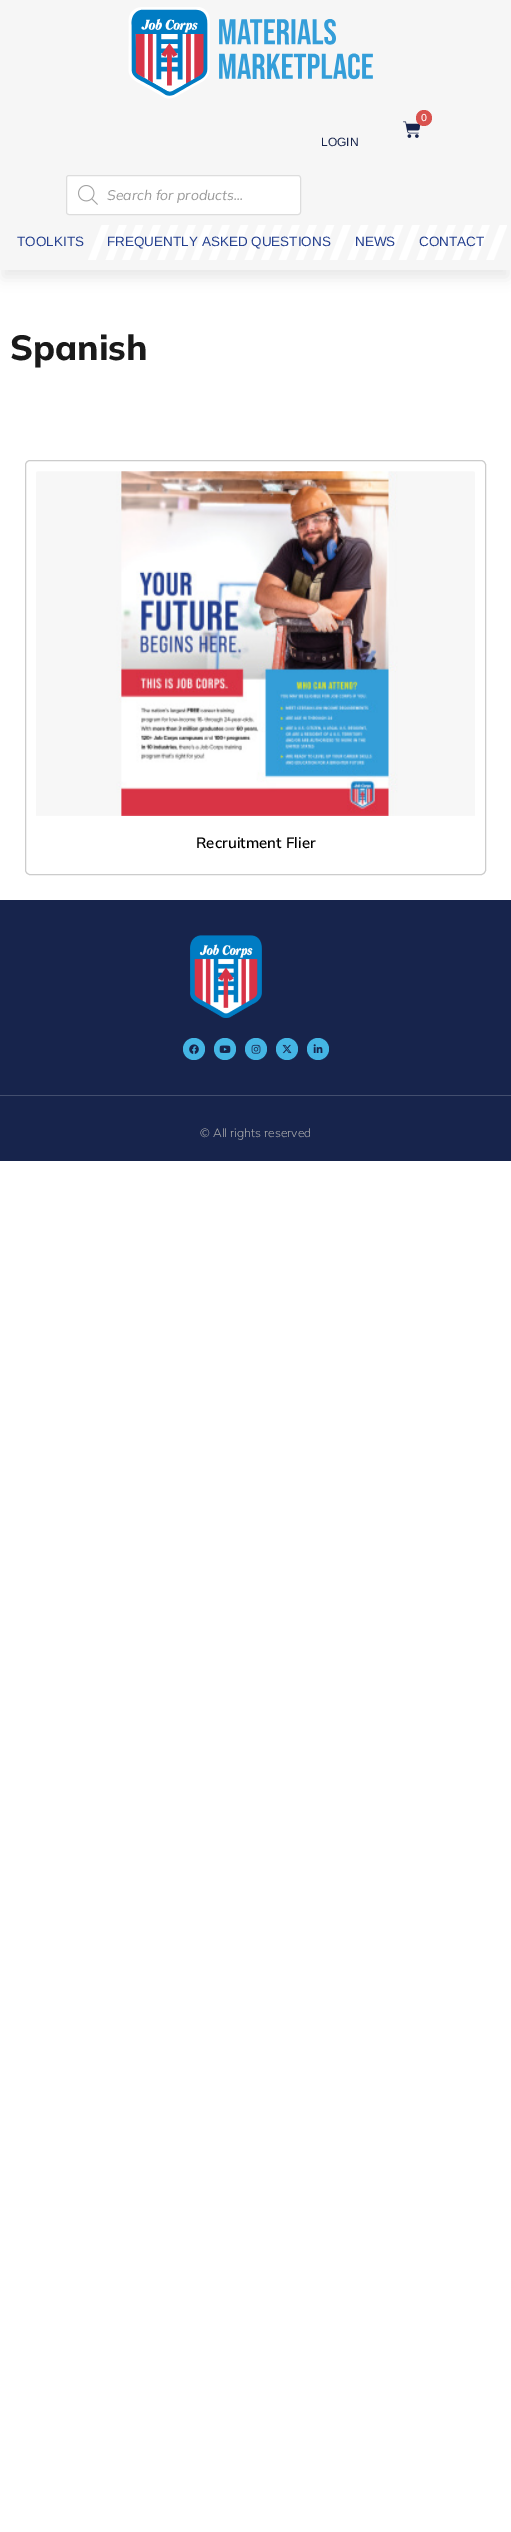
%!PS
<< /PageSize [511 2532] /PageUsesTransparency true >> setpagedevice
/fl/fill load def
/st/stroke load def
/gs/gsave load def
/gr/grestore load def
/co { dup -16 bitshift 255 div exch dup -8 bitshift 255 and 255 div exch 255 and 255 div setrgbcolor } def
/fn { [ exch dup neg 0 0 3 -1 roll 0 0 ] selectfont } def
/tx { co fn moveto show } def
/bx { co rectfill } def
/al { dup .setfillconstantalpha .setstrokeconstantalpha } def
/ci { newpath 0 360 arc closepath } def
/rr { 5 dict begin { /r /h /w /y /x } { exch def } forall
  x r add y moveto x w add y 2 copy h add r arct x w add y h add x 1 index r arct
  x y h add x y r arct x y 2 copy exch w add exch r arct closepath end } def
/sh { 12 dict begin { /a /b /q /h /w /y /x } { exch def } forall gsave /was 0 def
  9 -2 -9 { dup b mul 4 div /e exch def 1 sub .425 mul 2.718 exch exp 1 add a .99 .min exch div /now exch def
    1 1 now sub 1 was sub div sub al /was now def
    w h .min e 2 mul add 0 gt { x e sub y e sub w e 2 mul add h e 2 mul add
      q e add b .6 mul add w h .min 2 div e add .min 0 .max rr fill } if } for grestore end } def
/im { 5 dict begin { /h /w /y /x /name } { exch def } forall
  gsave x y translate w h scale
  w h 8 [w 0 0 h 0 0] name (r) file false 3 colorimage grestore end } def
0 .pushpdf14devicefilter
0 2532 translate 1 -1 scale
4 setmiterlimit
0 0 511 2532 16#FFFFFF bx
16#0F0F0F co
3 13 505 264 0 7 .1 sh
0 0 511 270 16#F6F6F6 bx
(media/1.raw) 128 7 245 92 im
(media/2.raw) 403 121 18 17 im
16#D9534F co
424 118 8 ci fl
16#FFFFFF co
66.5 175.5 234 39 2.5 rr gs fl gr
16#DDDDDD co
st
(media/3.raw) 78 185 20 20 im
(media/4.raw) 88 225 419 35 im
16#CCCCCC co
25.5 460.5 460 414 4.5 rr st
(media/5.raw) 36 471 439 345 im
0 900 511 195 16#17244C bx
(media/6.raw) 190 935 72 83 im
16#44B5E4 co
194 1049 11 ci fl
(media/7.raw) 189 1044 10 10 im
225 1049 11 ci fl
(media/8.raw) 219 1045 12 8 im
256 1049 11 ci fl
(media/9.raw) 251 1044 10 10 im
287 1049 11 ci fl
(media/10.raw) 282 1044 10 10 im
318 1049 11 ci fl
(media/11.raw) 313 1044 10 9 im
0 1096 511 65 16#17244C bx
0 1095 511 1 16#434E6E bx
(0) 421 121 /Mulish-SemiBold 10 16#FFFFFF tx
(LOGIN) 321 146 /LiberationSans-Regular 12 16#17244C tx
(Search for products...) 107 200 /Mulish-Italic 14 16#999999 tx
(TOOLKITS) 17 246 /LiberationSans-Regular 13.5 16#25408F tx
(FREQUENTLY ASKED QUESTIONS) 107 246 /LiberationSans-Regular 13.5 16#25408F tx
(NEWS) 355 246 /LiberationSans-Regular 13.5 16#25408F tx
(CONTACT) 419 246 /LiberationSans-Regular 13.5 16#25408F tx
(Spanish) 10 360 /Mulish-ExtraBold 35 16#1A1A1A tx
(Recruitment Flier) 196 848 /Mulish-SemiBold 15 16#000000 tx
(© All rights reserved) 200 1137 /Mulish-Light 12 16#ADADAD tx
.poppdf14devicefilter showpage
